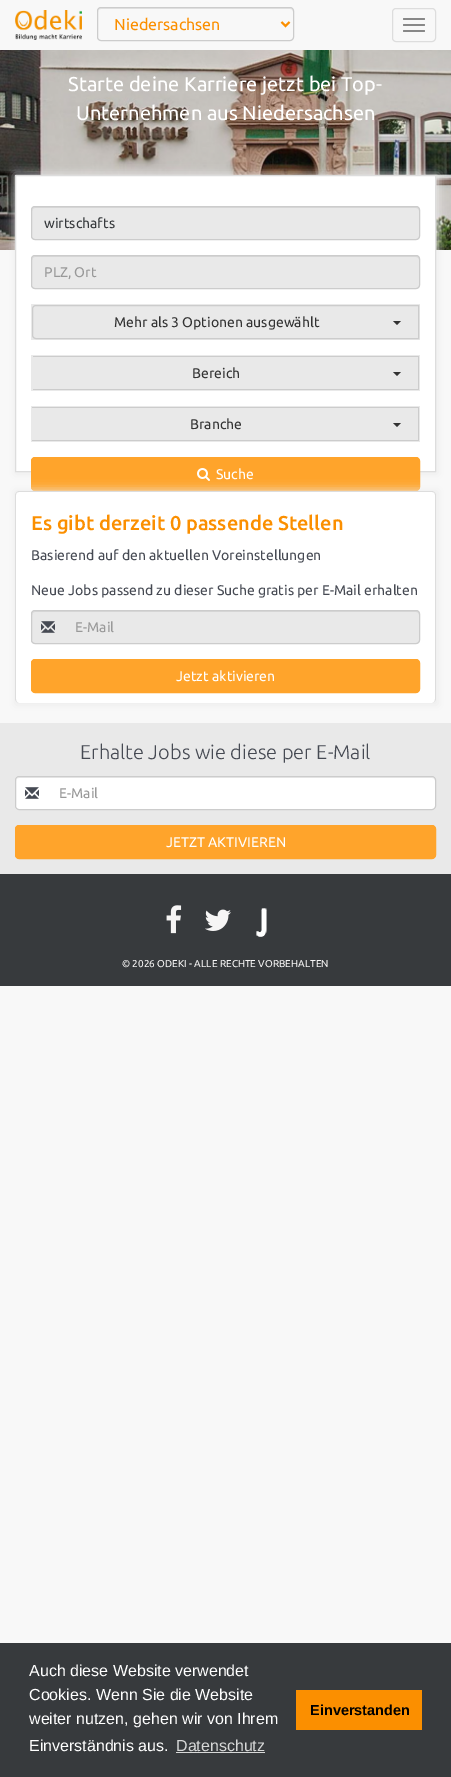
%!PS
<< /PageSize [451 1777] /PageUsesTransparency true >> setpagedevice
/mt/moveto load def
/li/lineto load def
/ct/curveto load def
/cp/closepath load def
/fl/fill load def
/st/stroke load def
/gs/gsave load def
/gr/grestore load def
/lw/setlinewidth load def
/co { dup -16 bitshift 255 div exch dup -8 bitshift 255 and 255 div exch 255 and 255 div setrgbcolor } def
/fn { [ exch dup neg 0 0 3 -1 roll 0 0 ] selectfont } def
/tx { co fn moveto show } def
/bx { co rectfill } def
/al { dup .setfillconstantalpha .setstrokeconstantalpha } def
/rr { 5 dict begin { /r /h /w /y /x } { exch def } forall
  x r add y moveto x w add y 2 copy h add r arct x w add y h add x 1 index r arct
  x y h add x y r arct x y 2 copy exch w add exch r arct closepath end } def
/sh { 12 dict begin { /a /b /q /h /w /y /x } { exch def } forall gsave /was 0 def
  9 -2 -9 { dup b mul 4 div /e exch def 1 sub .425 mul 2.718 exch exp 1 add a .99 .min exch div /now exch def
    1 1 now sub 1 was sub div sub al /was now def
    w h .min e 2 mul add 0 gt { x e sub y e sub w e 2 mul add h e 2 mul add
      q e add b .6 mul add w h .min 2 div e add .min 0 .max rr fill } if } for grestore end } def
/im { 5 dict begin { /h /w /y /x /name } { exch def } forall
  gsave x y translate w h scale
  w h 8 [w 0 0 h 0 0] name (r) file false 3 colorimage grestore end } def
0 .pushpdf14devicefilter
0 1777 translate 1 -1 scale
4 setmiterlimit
0 0 451 1777 16#F8F8F8 bx
(media/1.raw) 15 10 67 30 im
16#E5E5E5 co
101 9 mt 290 9 li 292 9 293 10 293 12 ct 293 10 292 8 290 8 ct 101 8 li 99 8 98 10 98 12 ct 98 10 99 9 101 9 ct cp fl
16#CCCCCC co
97.5 7.5 196 33 3.5 rr st
16#FB8F00 co
2 lw
281.5 22 mt 285.5 26 li 289.5 22 li st
16#DDDDDD co
1 lw
392.5 8.5 43 33 3.5 rr st
16#888888 co
403 18 22 2 1 rr fl
403 24 22 2 1 rr fl
403 30 22 2 1 rr fl
(media/2.raw) 0 50 451 200 im
16#ECECEC co
15 175 423 299 0 5 1 sh
16#FFFFFF co
15.5 175.5 mt 435.5 175.5 li 435.5 471.5 li 15.5 471.5 li cp gs fl gr
16#DDDDDD co
st
16#E9E9E9 co
31 206 389 34 4 rr fl
16#D8D8D8 co
35 208 mt 416 208 li 418 208 419 209 419 211 ct 419 209 418 207 416 207 ct 35 207 li 33 208 li 32 211 li 32 209 33 208 35 208 ct cp fl
16#CCCCCC co
31.5 206.5 388 33 3.5 rr st
16#E9E9E9 co
31 255 389 34 4 rr fl
16#D8D8D8 co
35 257 mt 416 257 li 418 257 419 258 419 260 ct 419 258 418 256 416 256 ct 35 256 li 33 257 li 32 260 li 32 258 33 257 35 257 ct cp fl
16#CCCCCC co
31.5 255.5 388 33 3.5 rr st
31 304 389 36 16#E9E9E9 bx
16#CCCCCC co
36 305.5 mt 418.5 305.5 li 418.5 338.5 li 36 338.5 li 34 338.5 32.5 337 32.5 335 ct 32.5 309 li 32.5 307 34 305.5 36 305.5 ct cp st
16#333333 co
393 321 mt 401 321 li 397 325 li cp fl
31 355 389 36 16#E9E9E9 bx
32 356 387 1 16#CCCCCC bx
418 356 1 34 16#CCCCCC bx
32 389 387 1 16#CCCCCC bx
32 356 1 34 16#E9E9E9 bx
16#333333 co
393 372 mt 401 372 li 397 376 li cp fl
31 406 389 36 16#E9E9E9 bx
32 407 387 1 16#CCCCCC bx
418 407 1 34 16#CCCCCC bx
32 440 387 1 16#CCCCCC bx
16#333333 co
393 423 mt 401 423 li 397 427 li cp fl
16#FFA42B co
31.5 457.5 388 33 3.5 rr gs fl gr
st
(media/3.raw) 197 468 13 13 im
16#ECECEC co
15 491 423 214 0 5 1 sh
16#FFFFFF co
15 491 421 212 4 rr fl
16#DDDDDD co
19 491 mt 432 491 li 434 491 436 493 436 495 ct 436 699 li 436 701 434 703 432 703 ct 19 703 li 17 703 15 701 15 699 ct 15 495 li 15 493 17 491 19 491 ct cp 19 492 mt 432 492 li 434 492 435 493 435 495 ct 435 699 li 435 701 434 703 432 703 ct 19 703 li 17 703 16 701 16 699 ct 16 495 li 16 493 17 492 19 492 ct cp eofill
16#E9E9E9 co
31 610 389 34 4 rr fl
16#D8D8D8 co
35 612 mt 416 612 li 418 612 419 613 419 615 ct 419 613 418 611 416 611 ct 35 611 li 33 612 li 32 615 li 32 613 33 612 35 612 ct cp fl
16#CCCCCC co
31.5 610.5 388 33 3.5 rr st
(media/4.raw) 41 621 14 12 im
16#FFA42B co
31.5 659.5 388 33 3.5 rr gs fl gr
st
0 723 451 151 16#E9E9E9 bx
16#FFFFFF co
15 776 421 34 4 rr fl
16#ECECEC co
19 778 mt 432 778 li 434 778 435 779 435 781 ct 435 779 434 777 432 777 ct 19 777 li 17 777 16 779 16 781 ct 16 779 17 778 19 778 ct cp fl
16#CCCCCC co
15.5 776.5 420 33 3.5 rr st
(media/5.raw) 25 787 14 12 im
16#FFA42B co
15.5 825.5 420 33 3.5 rr gs fl gr
st
0 874 451 112 16#373A3D bx
(media/6.raw) 166 905 16 29 im
(media/7.raw) 205 909 26 22 im
(media/8.raw) 256 908 11 29 im
0 1643 451 134 16#373A3D bx
176 1752 89 1 16#D7D8D8 bx
296 1690 126 40 16#FB8F00 bx
(Niedersachsen) 114 30 /Ubuntu-Regular 16 16#FB8F00 tx
(Starte deine Karriere jetzt bei Top-) 68 91 /Ubuntu-Regular 20 16#FFFFFF tx
(Unternehmen aus Niedersachsen) 76 120 /Ubuntu-Regular 20 16#FFFFFF tx
(wirtschafts) 44 228 /Ubuntu-Regular 14 16#373A3D tx
(PLZ, Ort) 44 277 /Ubuntu-Regular 14 16#999999 tx
(Mehr als 3 Optionen ausgewählt) 114 327 /Ubuntu-Regular 14 16#333333 tx
(Bereich) 192 378 /Ubuntu-Regular 14 16#333333 tx
(Branche) 190 429 /Ubuntu-Regular 14 16#333333 tx
(Suche) 216 479 /Ubuntu-Regular 14 16#FFFFFF tx
(Es gibt derzeit 0 passende Stellen) 31 530 /Ubuntu-Medium 20 16#FB8F00 tx
(Basierend auf den aktuellen Voreinstellungen) 31 560 /Ubuntu-Regular 14 16#464A53 tx
(Neue Jobs passend zu dieser Suche gratis per E-Mail erhalten) 31 595 /Ubuntu-Regular 14 16#464A53 tx
(E-Mail) 75 632 /Ubuntu-Regular 14 16#999999 tx
(Jetzt aktivieren) 176 681 /Ubuntu-Regular 14 16#FFFFFF tx
(Erhalte Jobs wie diese per E-Mail) 80 759 /Ubuntu-Light 20 16#464A53 tx
(E-Mail) 59 798 /Ubuntu-Regular 14 16#999999 tx
(JETZT AKTIVIEREN) 166 847 /Ubuntu-Regular 14 16#FFFFFF tx
(© 2026 ODEKI - ALLE RECHTE VORBEHALTEN) 122 967 /Ubuntu-Regular 10 16#F6F5F5 tx
(Auch diese Website verwendet) 29 1676 /LiberationSans-Regular 16 16#FFFFFF tx
(Cookies. Wenn Sie die Website) 29 1700 /LiberationSans-Regular 16 16#FFFFFF tx
(weiter nutzen, gehen wir von Ihrem) 29 1724 /LiberationSans-Regular 16 16#FFFFFF tx
(Einverständnis aus.) 29 1751 /LiberationSans-Regular 16 16#FFFFFF tx
(Datenschutz) 176 1751 /LiberationSans-Regular 16 16#D7D8D8 tx
(Einverstanden) 310 1715 /LiberationSans-Bold 14.5 16#000000 tx
.poppdf14devicefilter showpage
